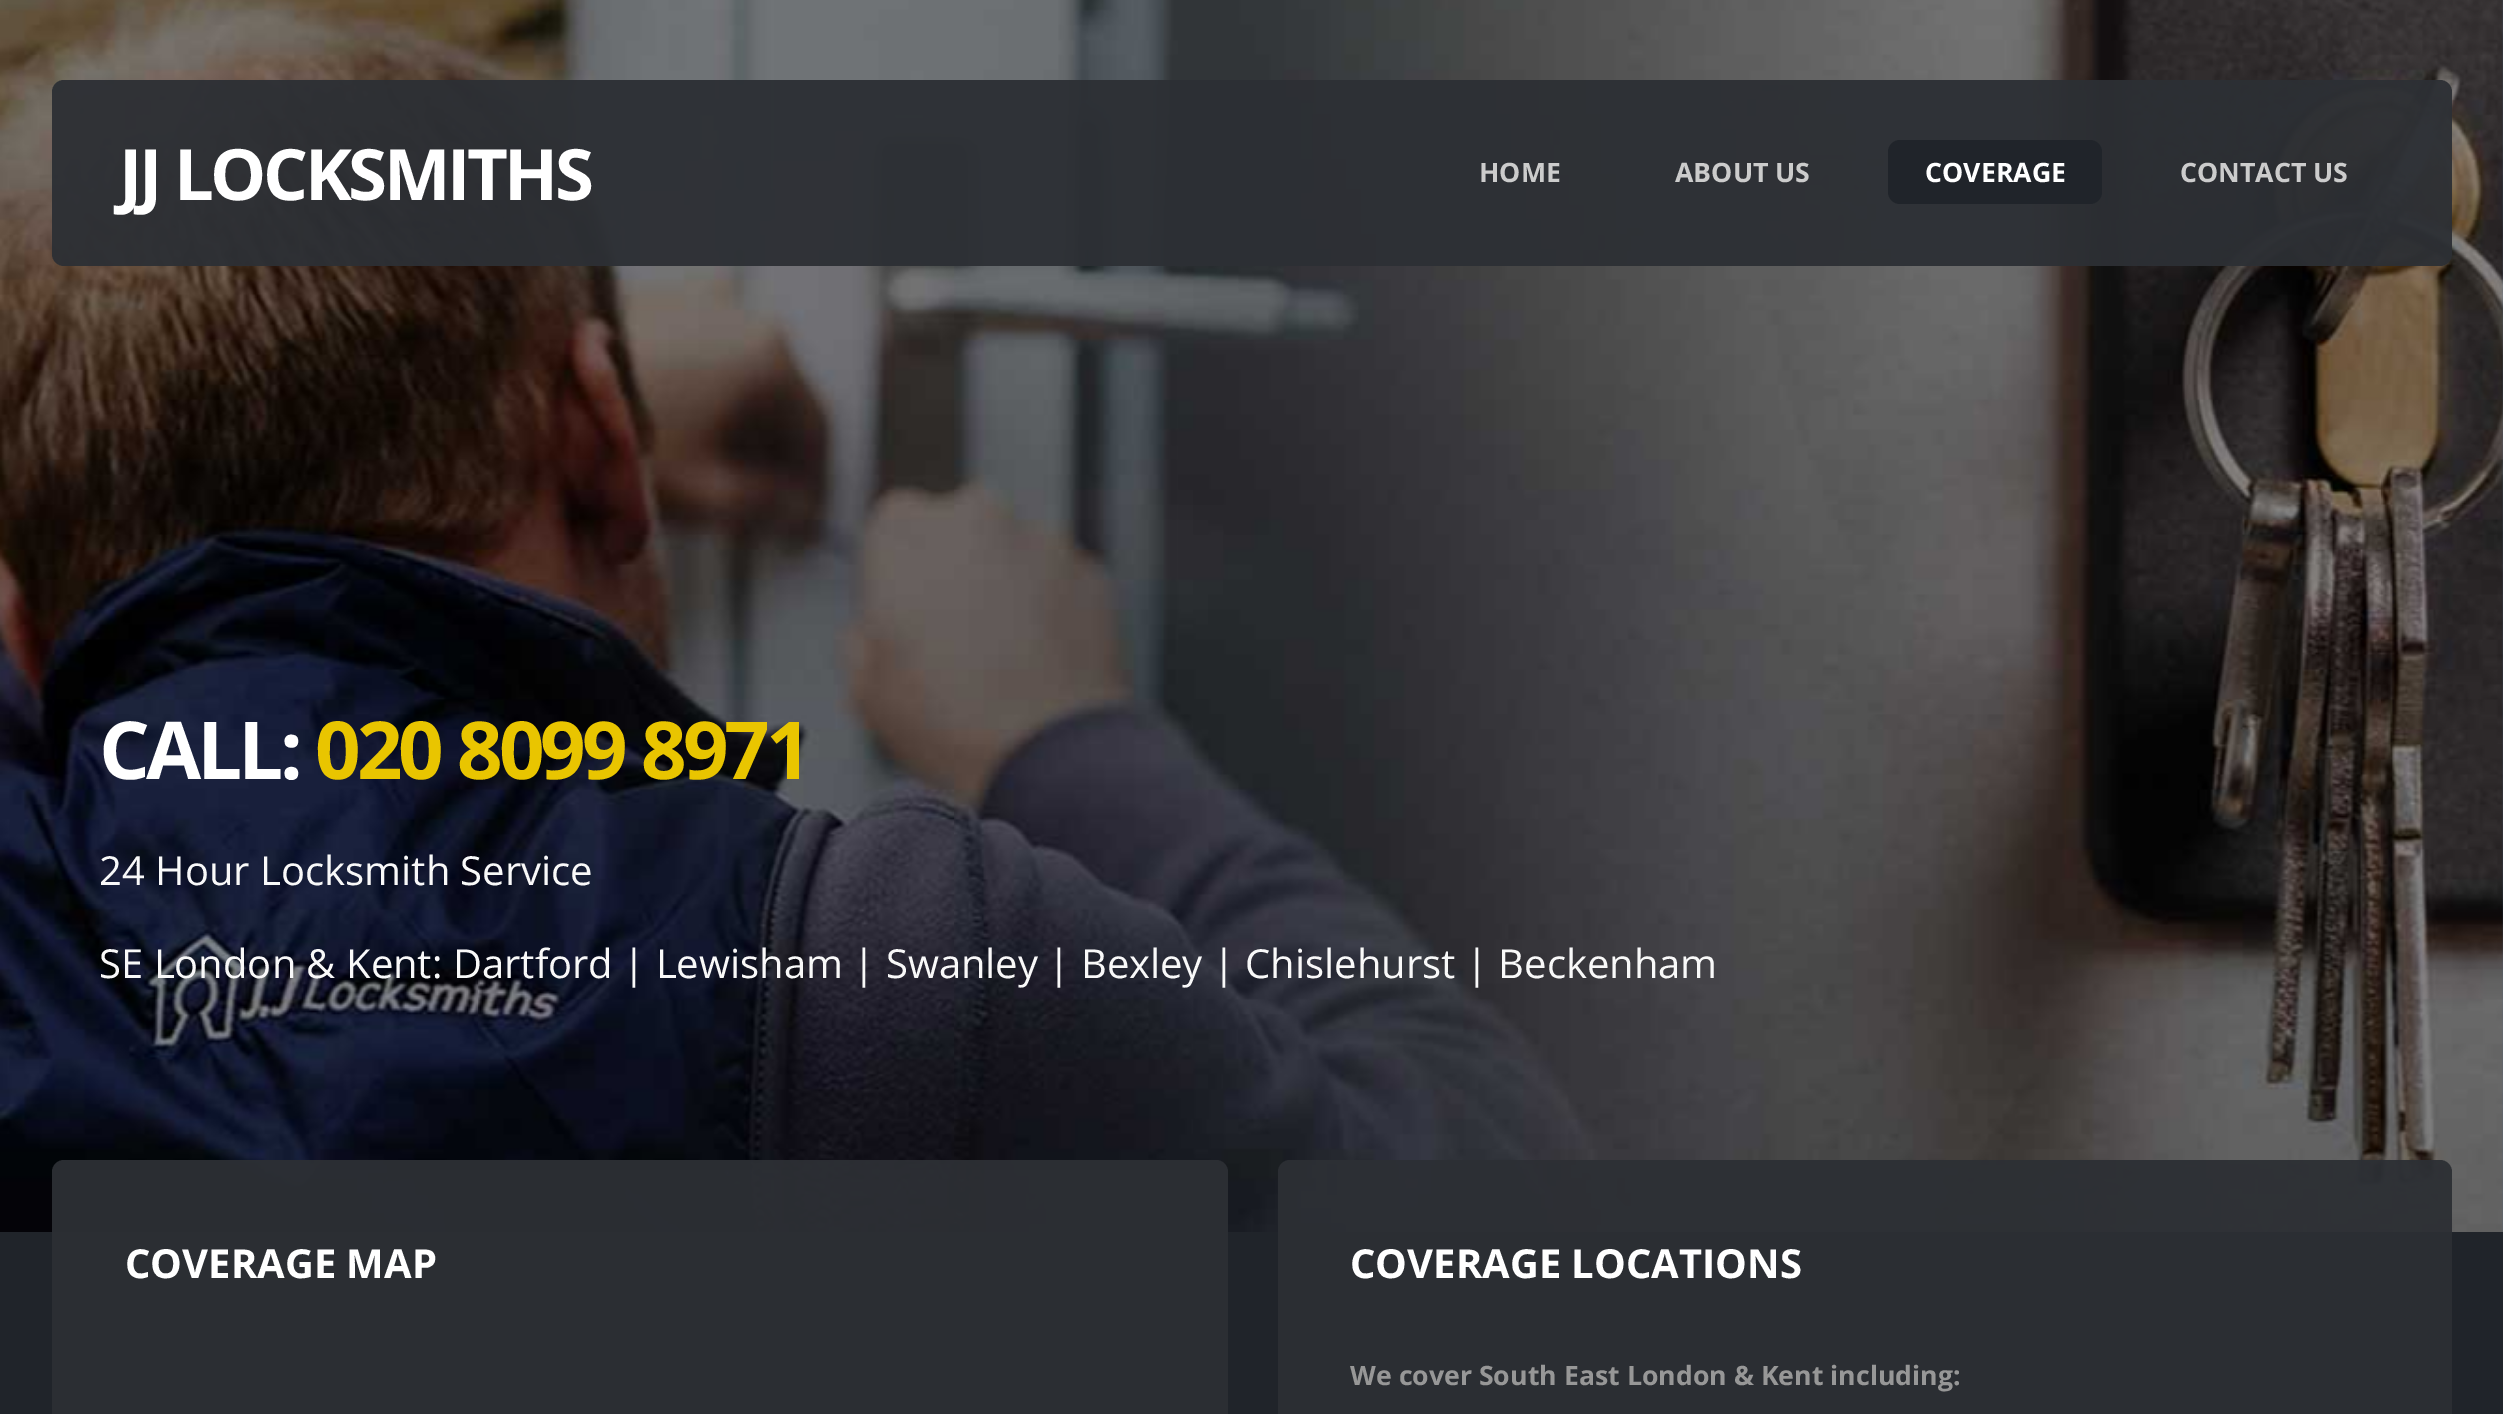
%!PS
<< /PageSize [2503 1414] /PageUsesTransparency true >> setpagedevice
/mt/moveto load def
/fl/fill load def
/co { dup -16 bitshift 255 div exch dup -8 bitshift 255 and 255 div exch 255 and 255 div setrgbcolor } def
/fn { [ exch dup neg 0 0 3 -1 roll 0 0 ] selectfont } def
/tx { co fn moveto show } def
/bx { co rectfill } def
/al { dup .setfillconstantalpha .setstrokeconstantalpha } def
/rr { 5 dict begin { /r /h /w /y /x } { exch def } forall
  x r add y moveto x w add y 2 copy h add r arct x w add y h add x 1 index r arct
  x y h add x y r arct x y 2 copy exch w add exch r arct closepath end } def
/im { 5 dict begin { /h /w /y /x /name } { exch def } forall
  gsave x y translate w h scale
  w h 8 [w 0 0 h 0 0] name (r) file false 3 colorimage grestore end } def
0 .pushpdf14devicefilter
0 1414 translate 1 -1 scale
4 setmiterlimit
0 0 2503 1414 16#FFFFFF bx
(media/1.raw) 0 0 2503 1232 im
0.95 al
16#2C2F34 co
52 80 2400 186 12 rr fl
1 al
16#20242A co
1888 140 214 64 12 rr fl
0 1232 2503 182 16#20242A bx
0.95 al
16#2C2F34 co
52 1160 1176 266 12 rr fl
1278 1160 1174 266 12 rr fl
/OpenSans-Bold 70.75 fn
1 al
16#FFFFFF co
119 200 mt -3.5 0 (JJ LOCKSMITHS) ashow
(HOME) 1479 182 /OpenSans-Bold 26.7 16#CCCCCC tx
(ABOUT US) 1675 182 /OpenSans-Bold 26.7 16#CCCCCC tx
(COVERAGE) 1925 182 /OpenSans-Bold 26.7 16#FFFFFF tx
(CONTACT US) 2180 182 /OpenSans-Bold 26.7 16#CCCCCC tx
/OpenSans-Bold 80 fn
16#FFFFFF co
99 779 mt -4 0 (CALL:) ashow
16#E9C500 co
315 779 mt -4 0 (020 8099 8971) ashow
(24 Hour Locksmith Service) 99 885 /OpenSans-Regular 40 16#F9F9F9 tx
(SE London & Kent: Dartford | Lewisham | Swanley | Bexley | Chislehurst | Beckenham) 99 978 /OpenSans-Regular 40 16#F9F9F9 tx
(COVERAGE MAP) 125 1278 /OpenSans-Bold 40 16#FFFFFF tx
(COVERAGE LOCATIONS) 1350 1278 /OpenSans-Bold 40 16#FFFFFF tx
(We cover South East London & Kent including:) 1350 1385 /OpenSans-Bold 26.7 16#979797 tx
.poppdf14devicefilter showpage
